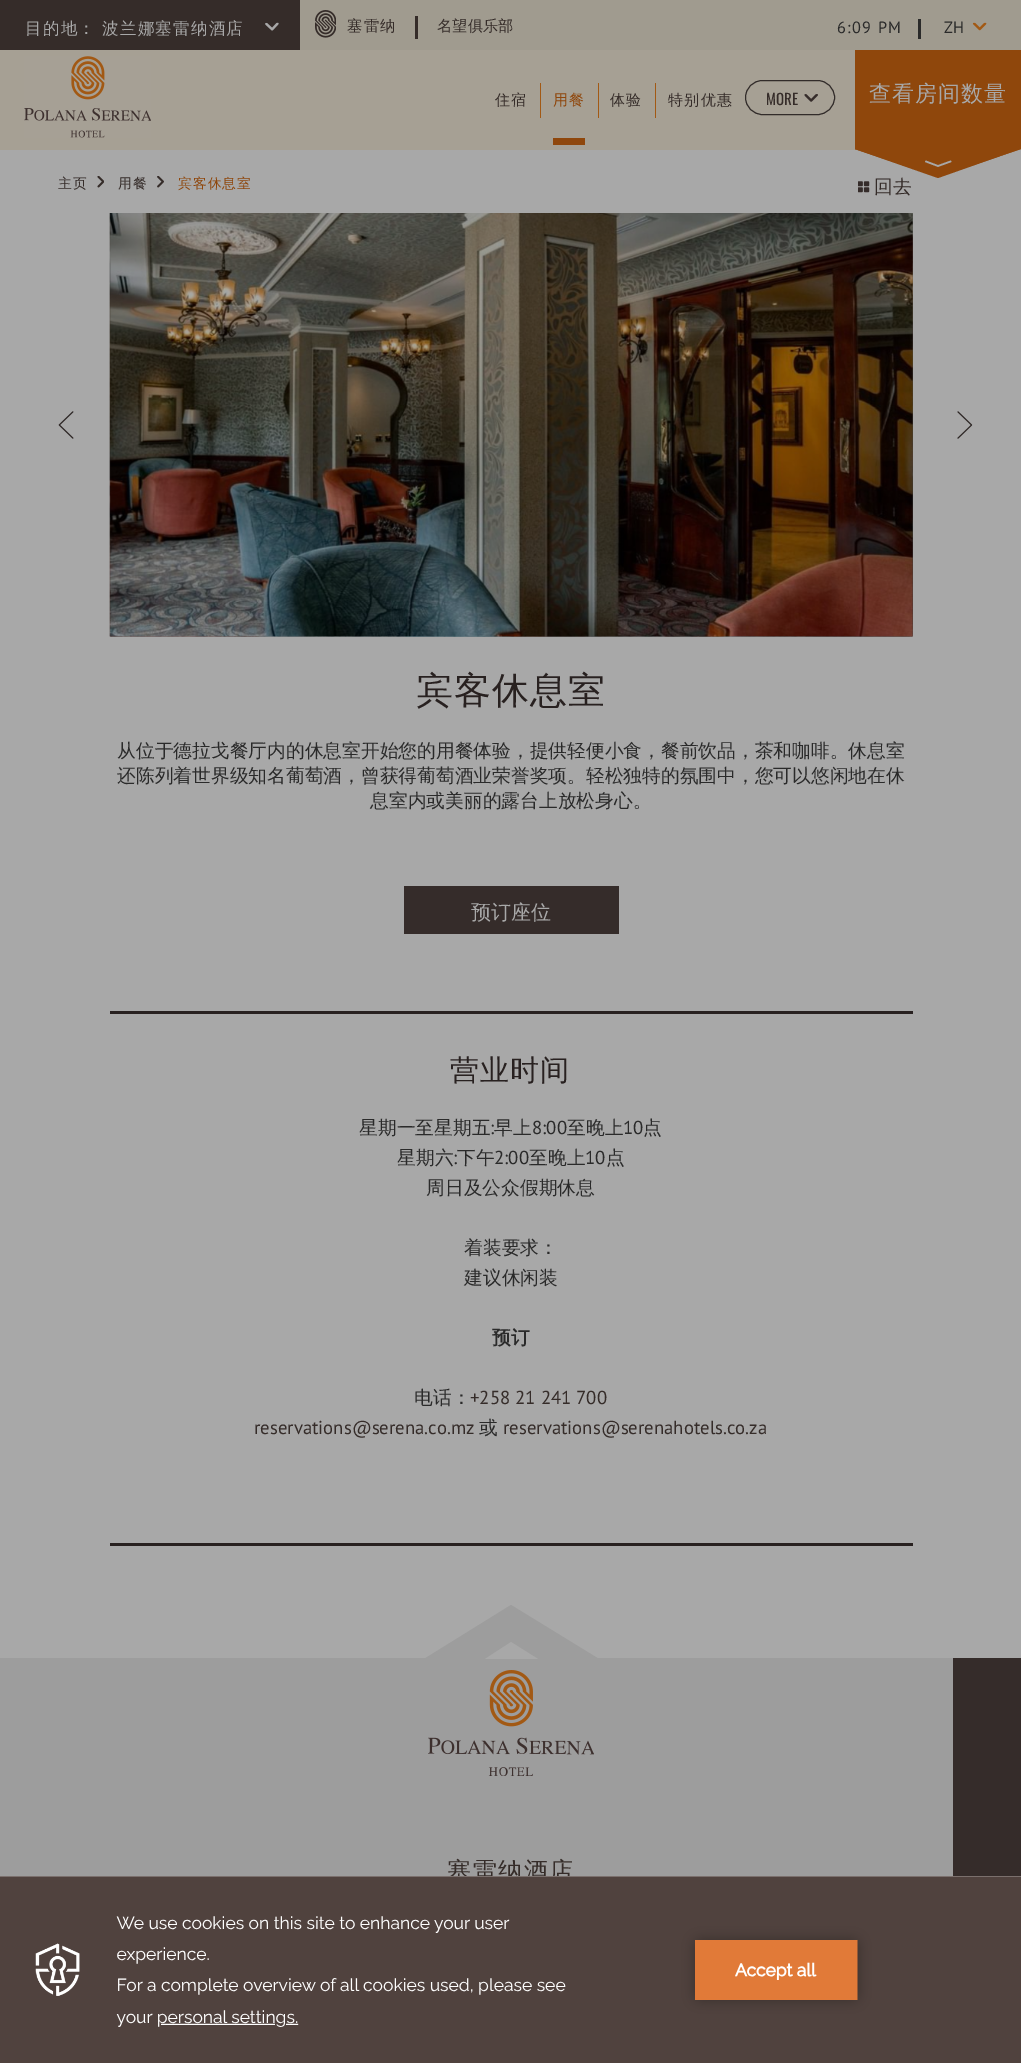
%!PS
<< /PageSize [1021 2063] >> setpagedevice
/mt/moveto load def
/li/lineto load def
/cp/closepath load def
/fl/fill load def
/st/stroke load def
/lw/setlinewidth load def
/co { dup -16 bitshift 255 div exch dup -8 bitshift 255 and 255 div exch 255 and 255 div setrgbcolor } def
/fn { [ exch dup neg 0 0 3 -1 roll 0 0 ] selectfont } def
/tx { co fn moveto show } def
/bx { co rectfill } def
/rr { 5 dict begin { /r /h /w /y /x } { exch def } forall
  x r add y moveto x w add y 2 copy h add r arct x w add y h add x 1 index r arct
  x y h add x y r arct x y 2 copy exch w add exch r arct closepath end } def
/im { 5 dict begin { /h /w /y /x /name } { exch def } forall
  gsave x y translate w h scale
  w h 8 [w 0 0 h 0 0] name (r) file false 3 colorimage grestore end } def
0 2063 translate 1 -1 scale
4 setmiterlimit
0 0 1021 2063 16#A8A8A8 bx
300 0 721 50 16#A09B8F bx
0 0 300 50 16#352C29 bx
(media/1.raw) 265 22 14 9 im
(media/2.raw) 315 10 21 28 im
415 16 3 23 16#352C29 bx
918 19 3 20 16#2A2A2A bx
(media/3.raw) 972 22 15 9 im
0 50 1021 100 16#A6A094 bx
(media/4.raw) 24 56 127 82 im
540 83 1 35 16#A25914 bx
553 138 32 7 16#8F470C bx
598 83 1 35 16#A25914 bx
655 83 1 35 16#A25914 bx
16#322C2A co
745.5 80.5 89 34 17 rr st
(media/5.raw) 804 94 14 8 im
855 50 166 99 16#8F470C bx
(media/6.raw) 97 176 7 12 im
(media/7.raw) 157 176 7 12 im
(media/8.raw) 858 181 12 12 im
(media/9.raw) 109 213 804 424 im
(media/10.raw) 109 213 804 424 im
(media/11.raw) 58 411 16 28 im
(media/12.raw) 957 411 16 28 im
404 886 215 48 16#352C2A bx
110 1011 803 3 16#282120 bx
110 1543 803 3 16#282120 bx
0 1658 953 218 16#9D9D9D bx
599 1659 mt 424 1659 li 511 1605 li cp fl
16#A8A8A8 co
538 1659 mt 485 1659 li 511 1642 li cp fl
(media/13.raw) 428 1670 166 106 im
953 1658 68 218 16#352C2A bx
/WenQuanYiZenHei-Medium 16.5 fn
16#A8A8A8 co
25 34 mt 1.25 0 (目的地：) ashow
102 34 mt 1.25 0 (波兰娜塞雷纳酒店) ashow
/WenQuanYiZenHei-Medium 15.25 fn
16#352C29 co
347 31 mt 1.25 0 (塞雷纳) ashow
(名望俱乐部) 437 31 /WenQuanYiZenHei-Medium 15.25 16#352C29 tx
/PTSans-Regular 16.25 fn
16#2A2A2A co
837 33 mt 1.25 0 (6:09 PM) ashow
(ZH) 944 33 /PTSans-Regular 16.25 16#2A2A2A tx
/WenQuanYiZenHei-Medium 15 fn
16#352C29 co
495 105 mt 1.25 0 (住宿) ashow
16#8F470C co
553 105 mt 1.25 0 (用餐) ashow
16#352C29 co
610 105 mt 1.25 0 (体验) ashow
668 105 mt 1.25 0 (特别优惠) ashow
(MORE) 766 105 /Oswald-Regular 15 16#352C29 tx
/WenQuanYiZenHei-Medium 22 fn
16#A8A8A8 co
869 101 mt 1 0 (查看房间数量) ashow
/WenQuanYiZenHei-Medium 13.75 fn
16#352C29 co
58 188 mt 1 0 (主页) ashow
118 188 mt 1 0 (用餐) ashow
16#8F470C co
178 188 mt 1 0 (宾客休息室) ashow
(回去) 874 193 /WenQuanYiZenHei-Medium 18.75 16#352C29 tx
16#8F470C co
855 149 mt 1020 149 li 938 178 li cp fl
938 177 mt 855 149 li 1021 149 li cp fl
16#A8A8A8 co
1.6 lw
1 setlinecap
1 setlinejoin
938 166 mt 926 161.5 li 938 166 li 950.5 161.5 li cp st
/WenQuanYiZenHei-Medium 37 fn
16#282120 co
416 703 mt 1 0 (宾客休息室) ashow
(从位于德拉戈餐厅内的休息室开始您的用餐体验，提供轻便小食，餐前饮品，茶和咖啡。休息室) 117 757 /WenQuanYiZenHei-Medium 18.75 16#2A2A2A tx
(还陈列着世界级知名葡萄酒，曾获得葡萄酒业荣誉奖项。轻松独特的氛围中，您可以悠闲地在休) 117 782 /WenQuanYiZenHei-Medium 18.75 16#2A2A2A tx
(息室内或美丽的露台上放松身心。) 370 807 /WenQuanYiZenHei-Medium 18.75 16#2A2A2A tx
(预订座位) 471 919 /WenQuanYiZenHei-Medium 20 16#A8A8A8 tx
/WenQuanYiZenHei-Medium 29 fn
16#282120 co
450 1080 mt 1 0 (营业时间) ashow
(星期一至星期五) 359 1134 /WenQuanYiZenHei-Medium 18.75 16#2A2A2A tx
(:) 490 1134 /PTSans-Regular 18.75 16#2A2A2A tx
(早上) 494 1134 /WenQuanYiZenHei-Medium 18.75 16#2A2A2A tx
(8:00) 532 1134 /PTSans-Regular 18.75 16#2A2A2A tx
(至晚上) 567 1134 /WenQuanYiZenHei-Medium 18.75 16#2A2A2A tx
(10) 623 1134 /PTSans-Regular 18.75 16#2A2A2A tx
(点) 643 1134 /WenQuanYiZenHei-Medium 18.75 16#2A2A2A tx
(星期六) 397 1164 /WenQuanYiZenHei-Medium 18.75 16#2A2A2A tx
(:) 453 1164 /PTSans-Regular 18.75 16#2A2A2A tx
(下午) 457 1164 /WenQuanYiZenHei-Medium 18.75 16#2A2A2A tx
(2:00) 494 1164 /PTSans-Regular 18.75 16#2A2A2A tx
(至晚上) 529 1164 /WenQuanYiZenHei-Medium 18.75 16#2A2A2A tx
(10) 585 1164 /PTSans-Regular 18.75 16#2A2A2A tx
(点) 606 1164 /WenQuanYiZenHei-Medium 18.75 16#2A2A2A tx
(周日及公众假期休息) 426 1194 /WenQuanYiZenHei-Medium 18.75 16#2A2A2A tx
(着装要求：) 464 1254 /WenQuanYiZenHei-Medium 18.75 16#2A2A2A tx
(建议休闲装) 464 1284 /WenQuanYiZenHei-Medium 18.75 16#2A2A2A tx
(预订) 492 1344 /WenQuanYiZenHei-Bold 18.75 16#2A2A2A tx
(电话：) 414 1404 /WenQuanYiZenHei-Medium 18.75 16#2A2A2A tx
(+258 21 241 700) 470 1404 /PTSans-Regular 18.75 16#352C29 tx
(reservations@serena.co.mz) 254 1434 /PTSans-Regular 18.75 16#352C29 tx
(或) 479 1434 /WenQuanYiZenHei-Medium 18.75 16#2A2A2A tx
(reservations@serenahotels.co.za) 503 1434 /PTSans-Regular 18.75 16#352C29 tx
/WenQuanYiZenHei-Medium 24 fn
447 1879 mt 1.5 0 (塞雷纳酒店) ashow
(media/14.raw) 0 1876 1021 187 im
showpage
